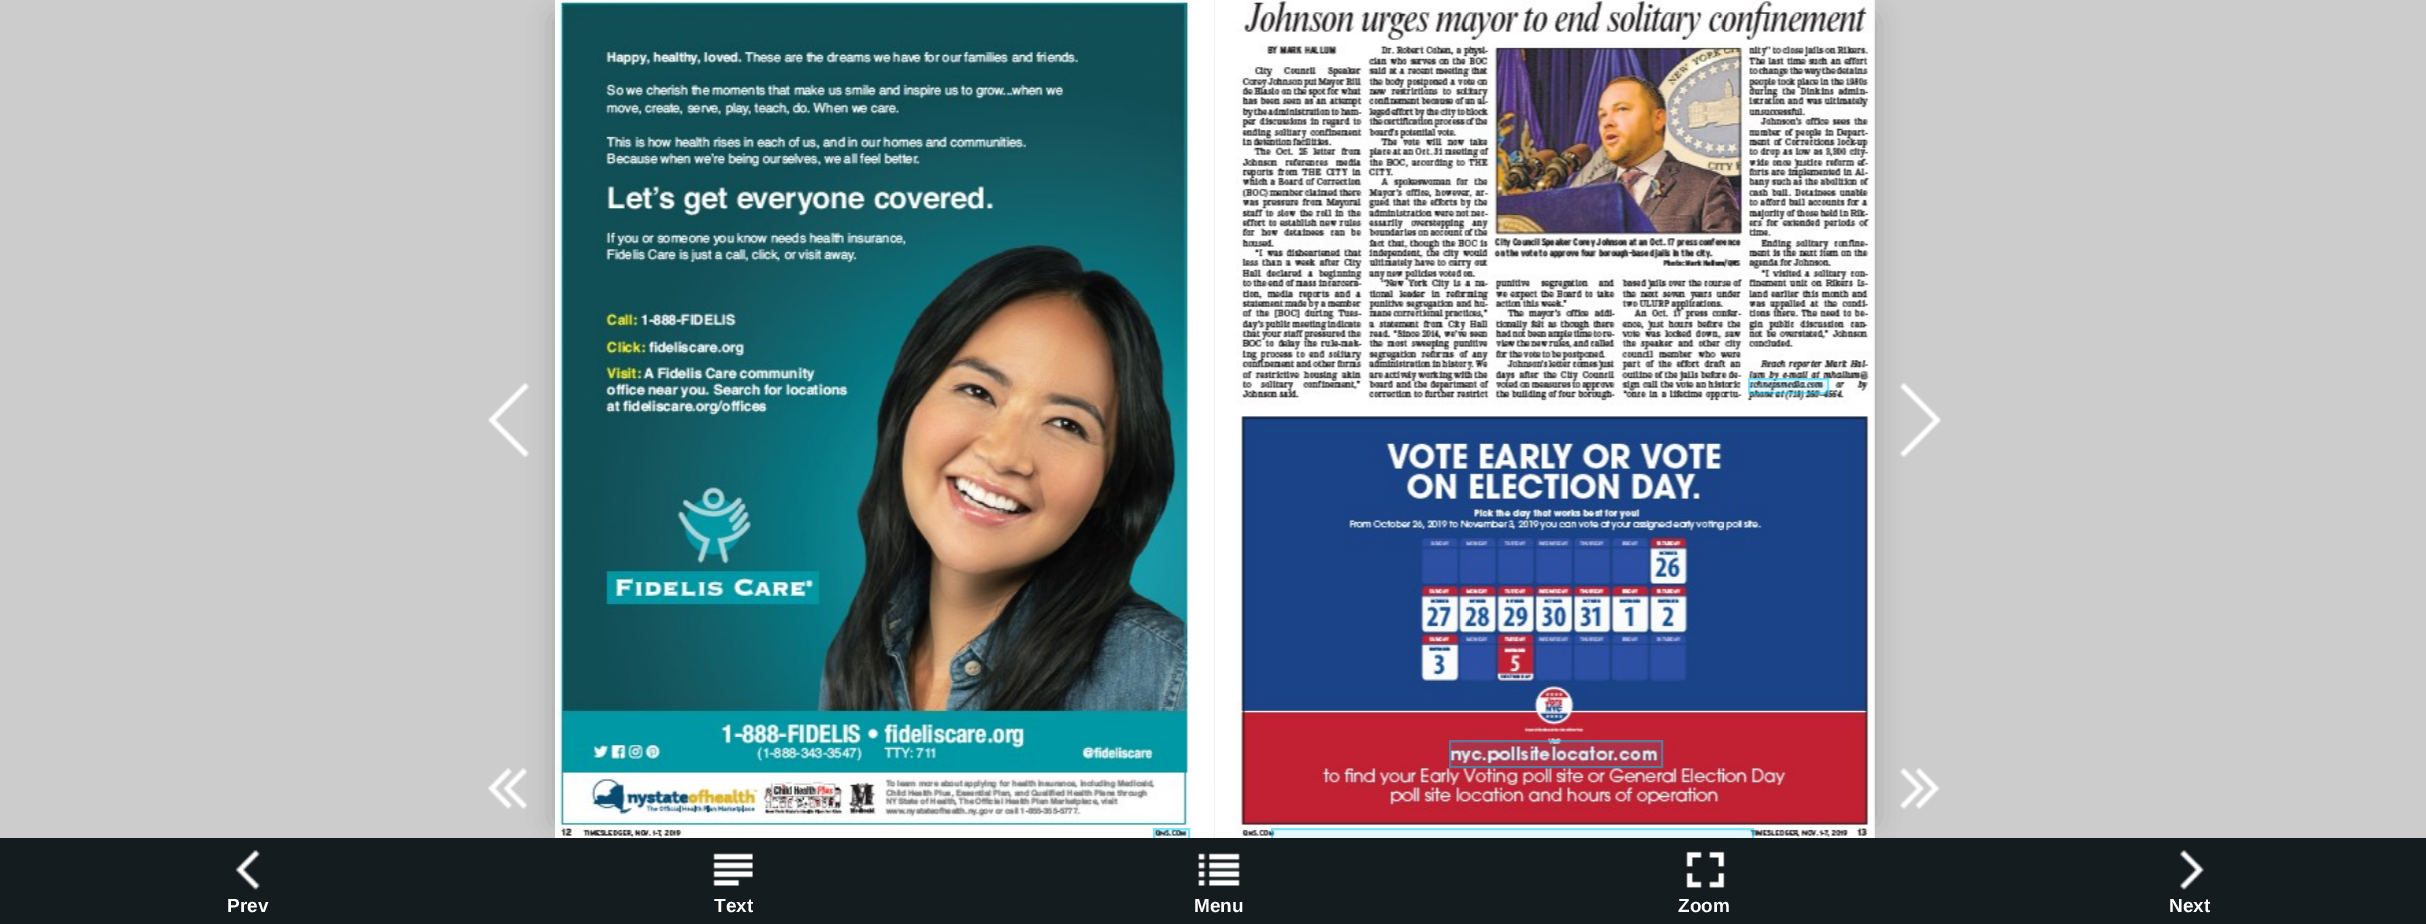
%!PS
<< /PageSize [2426 924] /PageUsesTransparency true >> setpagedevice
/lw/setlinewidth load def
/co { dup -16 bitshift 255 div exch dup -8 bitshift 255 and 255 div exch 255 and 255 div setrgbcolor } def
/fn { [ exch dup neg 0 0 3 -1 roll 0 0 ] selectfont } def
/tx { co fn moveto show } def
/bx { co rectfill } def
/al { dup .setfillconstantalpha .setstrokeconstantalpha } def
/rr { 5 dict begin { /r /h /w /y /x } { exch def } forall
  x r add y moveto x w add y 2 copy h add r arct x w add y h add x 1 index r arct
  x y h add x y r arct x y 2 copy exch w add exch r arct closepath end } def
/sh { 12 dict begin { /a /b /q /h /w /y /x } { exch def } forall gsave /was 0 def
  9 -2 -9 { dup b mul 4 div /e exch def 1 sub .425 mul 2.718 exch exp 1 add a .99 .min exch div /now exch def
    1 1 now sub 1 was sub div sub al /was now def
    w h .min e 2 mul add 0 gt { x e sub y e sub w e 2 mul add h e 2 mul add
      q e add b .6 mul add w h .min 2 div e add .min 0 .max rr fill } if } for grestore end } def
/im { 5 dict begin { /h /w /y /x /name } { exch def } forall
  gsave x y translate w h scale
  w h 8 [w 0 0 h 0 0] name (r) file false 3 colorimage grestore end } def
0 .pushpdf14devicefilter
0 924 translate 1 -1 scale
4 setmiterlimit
0 0 2426 924 16#CCCCCC bx
16#000000 co
555 18 625 803 0 13 .2 sh
(media/1.raw) 488 383 41 74 im
(media/5.raw) 555 0 660 838 im
1250 18 624 803 0 13 .2 sh
(media/2.raw) 1900 383 41 74 im
(media/3.raw) 488 768 39 41 im
(media/4.raw) 1900 768 40 41 im
0.5 al
16#00CCFF co
2 lw
1154 829 35 10 rectstroke
0.1 al
1155 830 33 8 16#00CCFF bx
1 al
(media/6.raw) 1215 0 660 838 im
0.5 al
1749 379 79 14 rectstroke
0.1 al
1750 380 77 12 16#00CCFF bx
0.5 al
1450 741 212 26 rectstroke
0.1 al
1451 742 210 25 16#00CCFF bx
0.5 al
1272 829 481 10 rectstroke
0.1 al
1272 830 480 8 16#00CCFF bx
1 al
0 838 2426 86 16#151C20 bx
(media/7.raw) 235 850 25 40 im
(media/8.raw) 713 853 40 33 im
(media/9.raw) 1198 853 42 33 im
(media/10.raw) 1686 851 39 37 im
(media/11.raw) 2180 850 24 40 im
(Prev) 227 912 /LiberationSans-Bold 19 16#FFFFFF tx
(Text) 714 912 /LiberationSans-Bold 19 16#FFFFFF tx
(Menu) 1194 912 /LiberationSans-Bold 19 16#FFFFFF tx
(Zoom) 1678 912 /LiberationSans-Bold 19 16#FFFFFF tx
(Next) 2169 912 /LiberationSans-Bold 19 16#FFFFFF tx
.poppdf14devicefilter showpage
